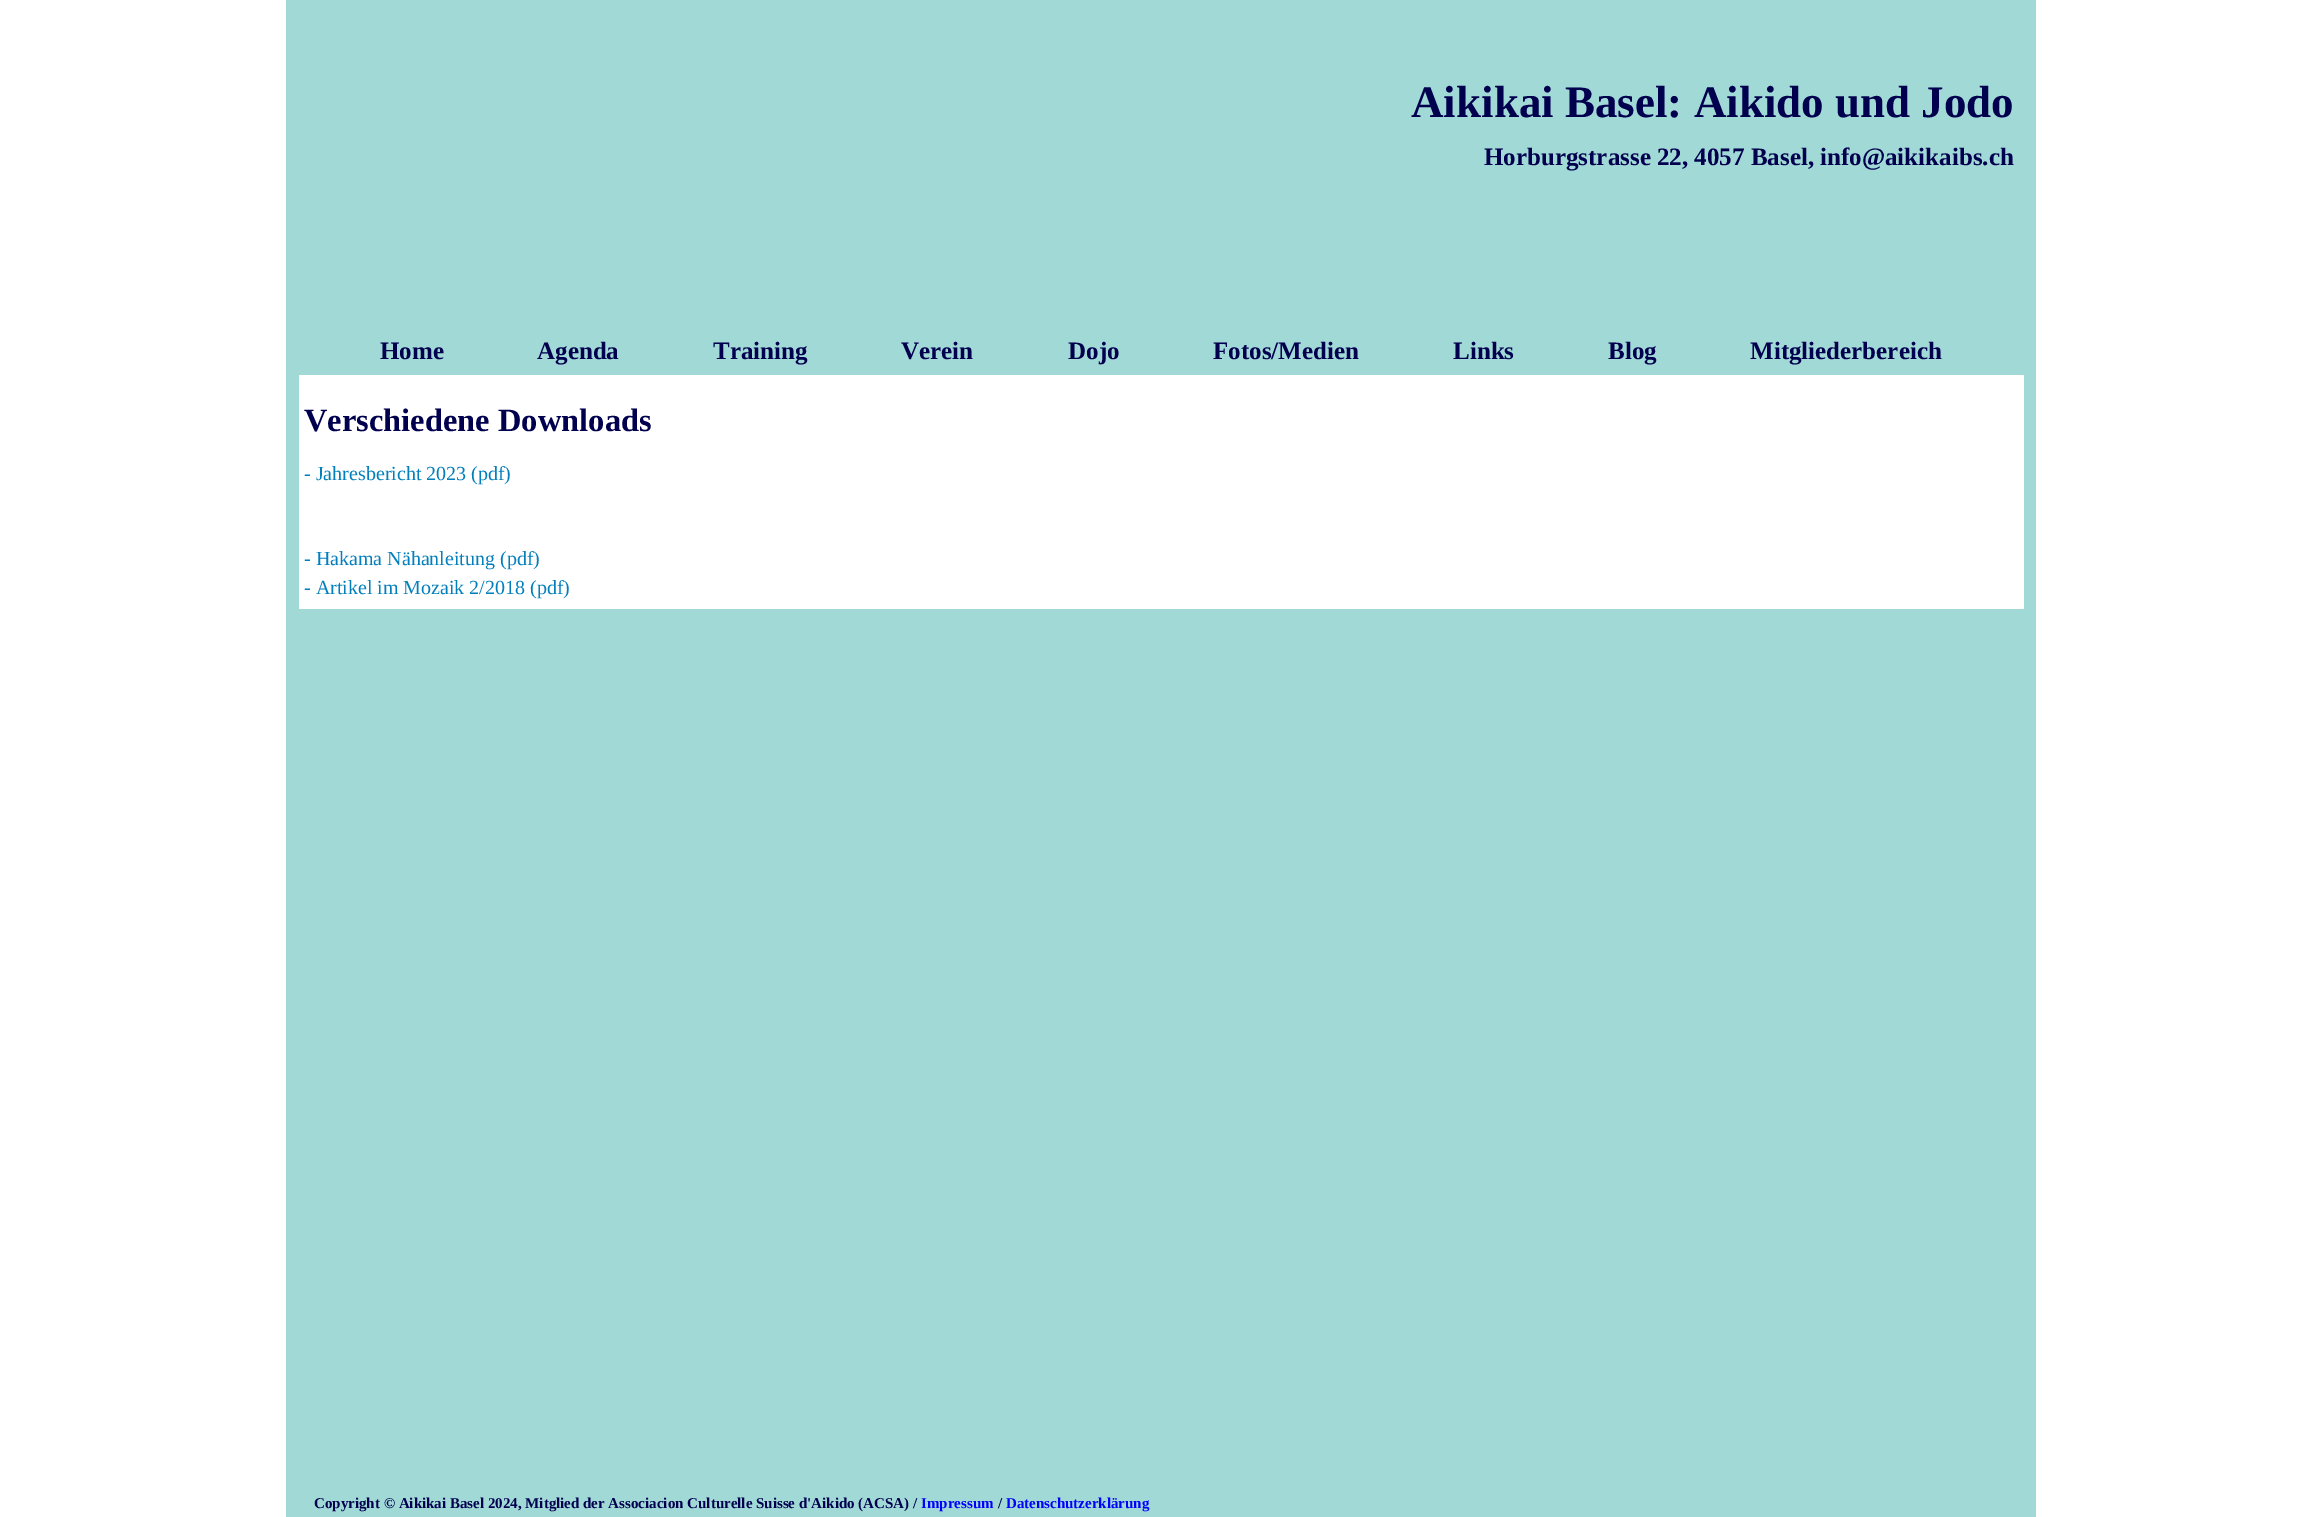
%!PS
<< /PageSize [2321 1517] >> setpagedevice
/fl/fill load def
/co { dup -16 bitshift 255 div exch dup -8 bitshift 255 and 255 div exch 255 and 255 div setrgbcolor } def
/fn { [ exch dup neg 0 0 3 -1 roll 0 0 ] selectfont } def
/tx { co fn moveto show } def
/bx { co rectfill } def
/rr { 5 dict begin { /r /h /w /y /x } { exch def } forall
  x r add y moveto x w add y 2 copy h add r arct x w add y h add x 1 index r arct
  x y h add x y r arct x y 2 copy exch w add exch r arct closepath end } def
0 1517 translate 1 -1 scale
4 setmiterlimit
0 0 2321 1517 16#FFFFFF bx
16#A1D9D6 co
286 0 1750 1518 1 rr fl
299 375 1725 234 16#FFFFFF bx
(Aikikai Basel: Aikido und Jodo) 1411 117 /LiberationSerif-Bold 45 16#00004F tx
(Horburgstrasse 22, 4057 Basel, info@aikikaibs.ch) 1484 165 /LiberationSerif-Bold 25 16#00004F tx
(Home) 380 359 /LiberationSerif-Bold 25 16#00004F tx
(Agenda) 537 359 /LiberationSerif-Bold 25 16#00004F tx
(Training) 713 359 /LiberationSerif-Bold 25 16#00004F tx
(Verein) 901 359 /LiberationSerif-Bold 25 16#00004F tx
(Dojo) 1068 359 /LiberationSerif-Bold 25 16#00004F tx
(Fotos/Medien) 1213 359 /LiberationSerif-Bold 25 16#00004F tx
(Links) 1453 359 /LiberationSerif-Bold 25 16#00004F tx
(Blog) 1608 359 /LiberationSerif-Bold 25 16#00004F tx
(Mitgliederbereich) 1750 359 /LiberationSerif-Bold 25 16#00004F tx
(Verschiedene Downloads) 304 431 /LiberationSerif-Bold 32.5 16#00004F tx
(- Jahresbericht 2023 \(pdf\)) 304 480 /LiberationSerif-Regular 20 16#037FBB tx
(- Hakama Nähanleitung \(pdf\)) 304 565 /LiberationSerif-Regular 20 16#037FBB tx
(- Artikel im Mozaik 2/2018 \(pdf\)) 304 594 /LiberationSerif-Regular 20 16#037FBB tx
(Copyright © Aikikai Basel 2024, Mitglied der Associacion Culturelle Suisse d'Aikido \(ACSA\) /) 314 1508 /LiberationSerif-Bold 15 16#00004F tx
(Impressum) 921 1508 /LiberationSerif-Bold 15 16#0000FF tx
(/) 998 1508 /LiberationSerif-Bold 15 16#00004F tx
(Datenschutzerklärung) 1006 1508 /LiberationSerif-Bold 15 16#0000FF tx
showpage
